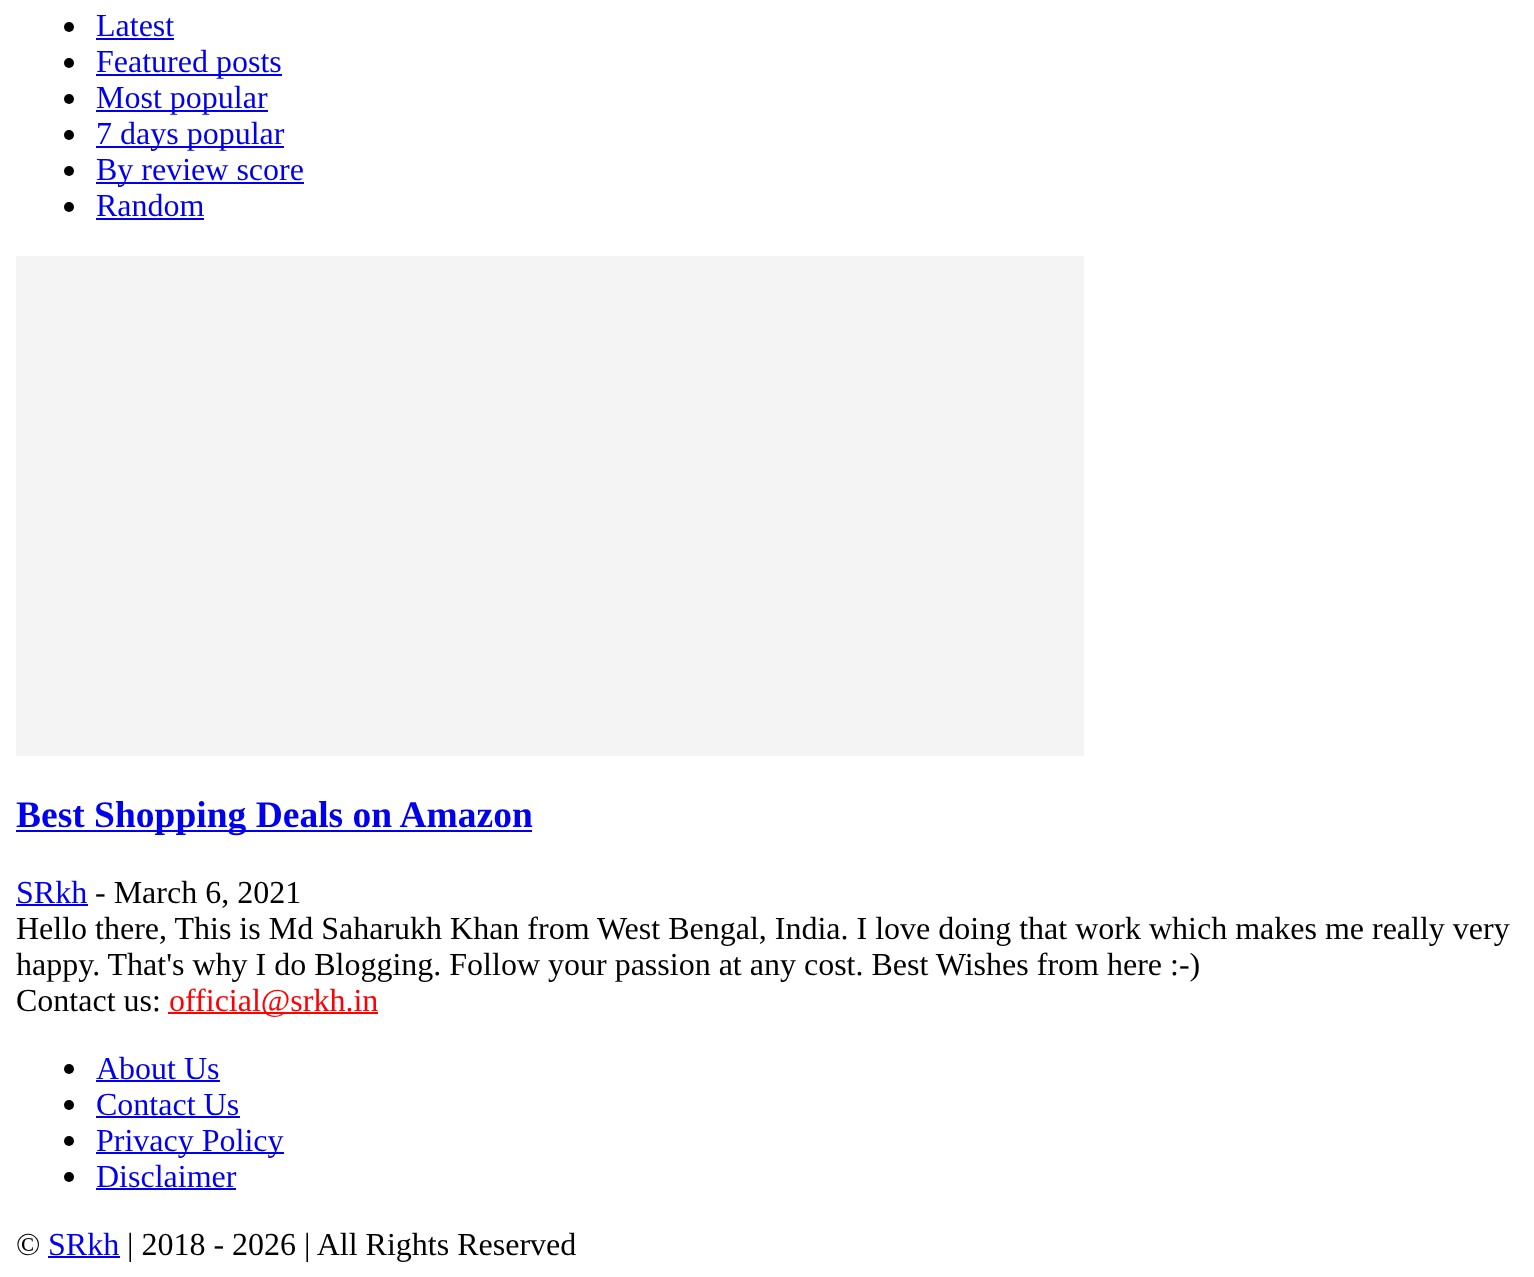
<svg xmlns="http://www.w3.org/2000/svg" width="1534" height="1277">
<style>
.a{font:32px Liberation Serif;fill:#00e}
.b{font:bold 37.5px Liberation Serif;fill:#00e}
.c{font:32px Liberation Serif;fill:#000}
.d{font:32px Liberation Serif;fill:#f00}
</style>
<rect width="100%" height="100%" fill="#fff"/>
<circle fill="#000" cx="69" cy="27" r="5"/>
<path fill="#00e" d="M96 38h78v2H96z"/>
<circle fill="#000" cx="69" cy="63" r="5"/>
<path fill="#00e" d="M96 74h186v2H96z"/>
<circle fill="#000" cx="69" cy="99" r="5"/>
<path fill="#00e" d="M96 110h172v2H96z"/>
<circle fill="#000" cx="69" cy="135" r="5"/>
<path fill="#00e" d="M96 146h188v2H96z"/>
<circle fill="#000" cx="69" cy="171" r="5"/>
<path fill="#00e" d="M96 182h208v2H96z"/>
<circle fill="#000" cx="69" cy="207" r="5"/>
<path fill="#00e" d="M96 218h108v2H96z"/>
<path fill="#f4f4f4" d="M16 256h1068v500H16z"/>
<path fill="#00e" d="M16 830h516v2H16z"/>
<path fill="#00e" d="M16 904h72v2H16z"/>
<path fill="#f00" d="M168 1012h210v2H168z"/>
<circle fill="#000" cx="69" cy="1069" r="5"/>
<path fill="#00e" d="M96 1080h124v2H96z"/>
<circle fill="#000" cx="69" cy="1105" r="5"/>
<path fill="#00e" d="M96 1116h144v2H96z"/>
<circle fill="#000" cx="69" cy="1141" r="5"/>
<path fill="#00e" d="M96 1152h188v2H96z"/>
<circle fill="#000" cx="69" cy="1177" r="5"/>
<path fill="#00e" d="M96 1188h140v2H96z"/>
<path fill="#00e" d="M48 1256h72v2H48z"/>
<text class="a" x="96" y="36">Latest</text>
<text class="a" x="96" y="72">Featured posts</text>
<text class="a" x="96" y="108">Most popular</text>
<text class="a" x="96" y="144">7 days popular</text>
<text class="a" x="96" y="180">By review score</text>
<text class="a" x="96" y="216">Random</text>
<text class="b" x="16" y="827">Best Shopping Deals on Amazon</text>
<text class="a" x="16" y="903">SRkh</text>
<text class="c" x="95" y="903">- March 6, 2021</text>
<text class="c" x="16" y="939">Hello there, This is Md Saharukh Khan from West Bengal, India. I love doing that work which makes me really very</text>
<text class="c" x="16" y="975">happy. That's why I do Blogging. Follow your passion at any cost. Best Wishes from here :-)</text>
<text class="c" x="16" y="1011">Contact us:</text>
<text class="d" x="169" y="1011">official@srkh.in</text>
<text class="a" x="96" y="1079">About Us</text>
<text class="a" x="96" y="1115">Contact Us</text>
<text class="a" x="96" y="1151">Privacy Policy</text>
<text class="a" x="96" y="1187">Disclaimer</text>
<text class="c" x="16" y="1255">©</text>
<text class="a" x="48" y="1255">SRkh</text>
<text class="c" x="127" y="1255">| 2018 - 2026 | All Rights Reserved</text>
</svg>
